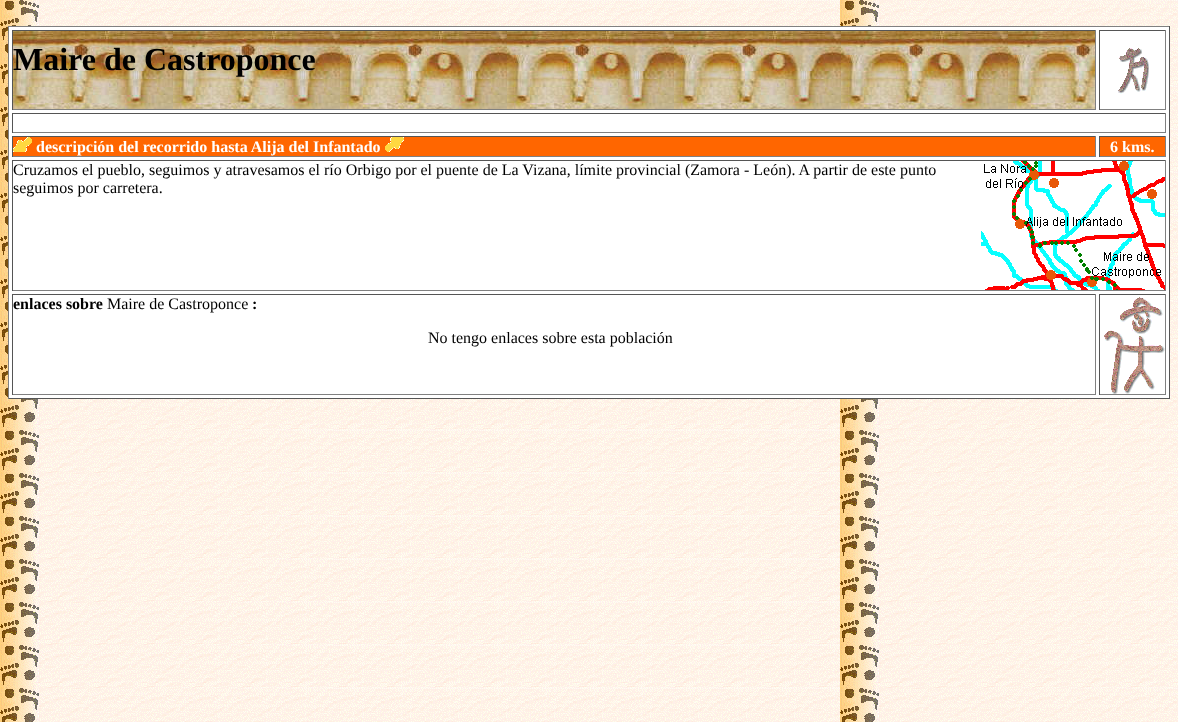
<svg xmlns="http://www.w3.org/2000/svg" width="1178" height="722">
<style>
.a{font:bold 32px Liberation Serif;fill:#000}
.b{font:bold 16px Liberation Serif;fill:#fff}
.c{font:16px Liberation Serif;fill:#000}
.d{font:bold 16px Liberation Serif;fill:#000}
</style>
<rect width="100%" height="100%" fill="#fff"/>
<image href="1.png" x="0" y="0" width="1178" height="722"/>
<path fill="#fff" d="M9 27h1160v371H9z"/>
<path fill="#808080" d="M8 26h1162v1H8z"/>
<path fill="#555" d="M1169 26h1v373H1169z"/>
<path fill="#555" d="M8 398h1162v1H8z"/>
<path fill="#808080" d="M8 26h1v373H8z"/>
<image href="2.png" x="13" y="31" width="1082" height="78"/>
<path fill="#555" d="M12 30h1084v1H12z"/>
<path fill="#808080" d="M1095 30h1v80H1095z"/>
<path fill="#808080" d="M12 109h1084v1H12z"/>
<path fill="#555" d="M12 30h1v80H12z"/>
<path fill="#555" d="M1099 30h67v1H1099z"/>
<path fill="#808080" d="M1165 30h1v80H1165z"/>
<path fill="#808080" d="M1099 109h67v1H1099z"/>
<path fill="#555" d="M1099 30h1v80H1099z"/>
<image href="3.png" x="1118" y="48" width="31" height="46"/>
<path fill="#555" d="M12 113h1154v1H12z"/>
<path fill="#808080" d="M1165 113h1v20H1165z"/>
<path fill="#808080" d="M12 132h1154v1H12z"/>
<path fill="#555" d="M12 113h1v20H12z"/>
<path fill="#f60" d="M13 137h1082v19H13z"/>
<path fill="#555" d="M12 136h1084v1H12z"/>
<path fill="#808080" d="M1095 136h1v21H1095z"/>
<path fill="#808080" d="M12 156h1084v1H12z"/>
<path fill="#555" d="M12 136h1v21H12z"/>
<image href="4.png" x="13" y="137" width="19" height="15"/>
<image href="5.png" x="385" y="137" width="19" height="15"/>
<path fill="#f60" d="M1100 137h65v19H1100z"/>
<path fill="#555" d="M1099 136h67v1H1099z"/>
<path fill="#808080" d="M1165 136h1v21H1165z"/>
<path fill="#808080" d="M1099 156h67v1H1099z"/>
<path fill="#555" d="M1099 136h1v21H1099z"/>
<path fill="#555" d="M12 160h1154v1H12z"/>
<path fill="#808080" d="M1165 160h1v131H1165z"/>
<path fill="#808080" d="M12 290h1154v1H12z"/>
<path fill="#555" d="M12 160h1v131H12z"/>
<image href="6.png" x="981" y="161" width="184" height="129"/>
<path fill="#555" d="M12 294h1084v1H12z"/>
<path fill="#808080" d="M1095 294h1v101H1095z"/>
<path fill="#808080" d="M12 394h1084v1H12z"/>
<path fill="#555" d="M12 294h1v101H12z"/>
<path fill="#555" d="M1099 294h67v1H1099z"/>
<path fill="#808080" d="M1165 294h1v101H1165z"/>
<path fill="#808080" d="M1099 394h67v1H1099z"/>
<path fill="#555" d="M1099 294h1v101H1099z"/>
<image href="7.png" x="1104" y="297" width="61" height="97"/>
<text class="a" x="13" y="70">Maire de Castroponce</text>
<text class="b" x="36" y="152">descripción del recorrido hasta Alija del Infantado</text>
<text class="b" x="1110" y="152">6 kms.</text>
<text class="c" x="13" y="175">Cruzamos el pueblo, seguimos y atravesamos el río Orbigo por el puente de La Vizana, límite provincial (Zamora - León). A partir de este punto</text>
<text class="c" x="13" y="193">seguimos por carretera.</text>
<text class="d" x="13" y="309">enlaces sobre</text>
<text class="c" x="107" y="309">Maire de Castroponce</text>
<text class="d" x="252" y="309">:</text>
<text class="c" x="428" y="343">No tengo enlaces sobre esta población</text>
</svg>
